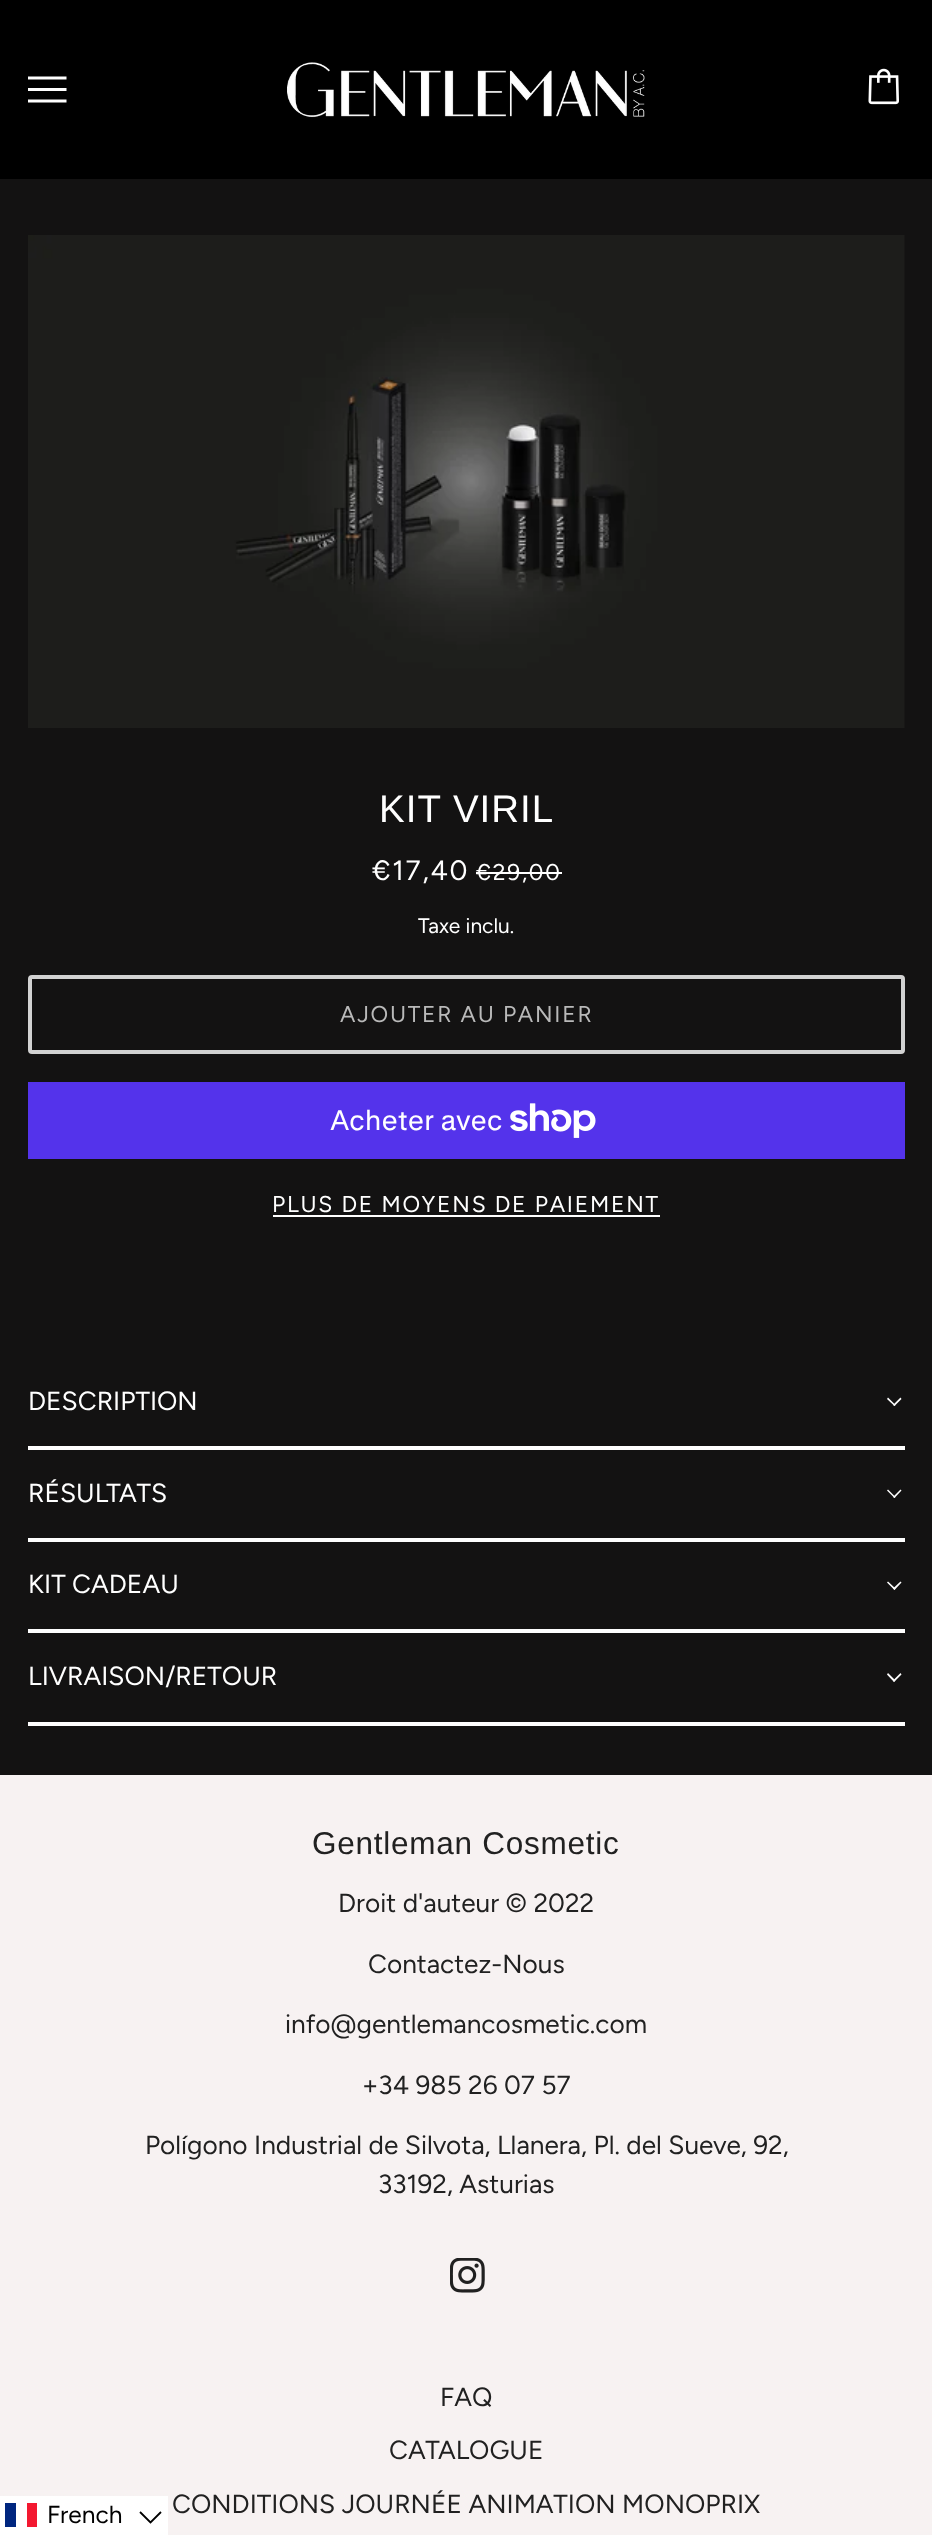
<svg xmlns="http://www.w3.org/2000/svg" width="932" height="2535">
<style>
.a{font:38.5px Liberation Sans;letter-spacing:1px;fill:#fff}
.b{font:28px Figtree;letter-spacing:1.75px;fill:#fff}
.c{font:22.75px Figtree;letter-spacing:1.75px;fill:#fff}
.d{font:21px Figtree;fill:#fff}
.e{font:22.75px Figtree;letter-spacing:1.75px;fill:#b9b9b9}
.f{font:28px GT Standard;fill:#fff}
.g{font:26.25px Figtree;fill:#fff}
.h{font:31.5px Liberation Sans;letter-spacing:0.75px;fill:#212121}
.i{font:26.25px Figtree;fill:#212121}
.j{font:24.5px Figtree;fill:#000}
</style>
<rect width="100%" height="100%" fill="#131212"/>
<path fill="#000" d="M0 0h932v179H0z"/>
<path fill="#fff" d="M28 79.5v-3h38.5v3zm0 11.5v-3h38.5v3zm0 11.5v-3h38.5v3z"/>
<image href="1.png" x="287" y="62" width="358" height="56"/>
<image href="2.png" x="868" y="68" width="31" height="37"/>
<image href="3.png" x="28" y="235" width="877" height="493"/>
<path fill="#fff" d="M476 872h86v2H476z"/>
<rect fill="none" stroke="#d2d2d2" stroke-width="4" x="30" y="977" width="873" height="75" rx="2"/>
<path fill="#5433eb" d="M28 1082h877v77H28z"/>
<image href="4.png" x="510" y="1103" width="86" height="35"/>
<path fill="#fff" d="M273 1215h387v2H273z"/>
<path fill="#fefefe" d="M28 1446h877v4H28z"/>
<path fill="#fefefe" d="M900.5 1397.5l1 1.5l-7 7l-1.5-1z"/>
<path fill="#fefefe" d="M888 1397.5l7.5 7.5l-1 1l-7.5-7z"/>
<path fill="#fefefe" d="M28 1538h877v4H28z"/>
<path fill="#fefefe" d="M900.5 1489.5l1 1l-7 7.5l-1.5-1z"/>
<path fill="#fefefe" d="M888 1489.5l7.5 7.5l-1 1l-7.5-7.5z"/>
<path fill="#fefefe" d="M28 1629h877v4H28z"/>
<path fill="#fefefe" d="M900.5 1581.5l1 1l-7 7.5l-1.5-1.5z"/>
<path fill="#fefefe" d="M888 1581.5l7.5 7l-1 1.5l-7.5-7.5z"/>
<path fill="#fefefe" d="M28 1722h877v4H28z"/>
<path fill="#fefefe" d="M900.5 1673l1 1.5l-7.5 7.5l-1-1.5z"/>
<path fill="#fefefe" d="M888 1673l7.5 7.5l-1.5 1.5l-7-7.5z"/>
<path fill="#f7f2f2" d="M0 1775h932v760H0z"/>
<image href="5.png" x="450" y="2258" width="35" height="35"/>
<path fill="#fff" d="M0 2496h168v39H0z"/>
<path fill="#00267f" d="M5 2503h11v24H5z"/>
<path fill="#f31830" d="M27 2503h10v24H27z"/>
<path fill="none" stroke="#000" stroke-width="1.8" d="M140 2512l10.5 10.5l10.5-10.5"/>
<text class="a" x="379" y="822">KIT VIRIL</text>
<text class="b" x="372" y="880">€17,40</text>
<text class="c" x="476" y="880">€29,00</text>
<text class="d" x="418" y="933">Taxe inclu.</text>
<text class="e" x="340" y="1022">AJOUTER AU PANIER</text>
<text class="f" x="330" y="1130">Acheter avec</text>
<text class="c" x="272" y="1212">PLUS DE MOYENS DE PAIEMENT</text>
<text class="g" x="28" y="1410">DESCRIPTION</text>
<text class="g" x="28" y="1502">RÉSULTATS</text>
<text class="g" x="28" y="1593">KIT CADEAU</text>
<text class="g" x="28" y="1685">LIVRAISON/RETOUR</text>
<text class="h" x="312" y="1854">Gentleman Cosmetic</text>
<text class="i" x="338" y="1912">Droit d'auteur © 2022</text>
<text class="i" x="368" y="1973">Contactez-Nous</text>
<text class="i" x="285" y="2033">info@gentlemancosmetic.com</text>
<text class="i" x="362" y="2094">+34 985 26 07 57</text>
<text class="i" x="145" y="2154">Polígono Industrial de Silvota, Llanera, Pl. del Sueve, 92,</text>
<text class="i" x="378" y="2193">33192, Asturias</text>
<text class="i" x="440" y="2406">FAQ</text>
<text class="i" x="389" y="2459">CATALOGUE</text>
<text class="i" x="172" y="2513">CONDITIONS JOURNÉE ANIMATION MONOPRIX</text>
<text class="j" x="47" y="2523">French</text>
</svg>
